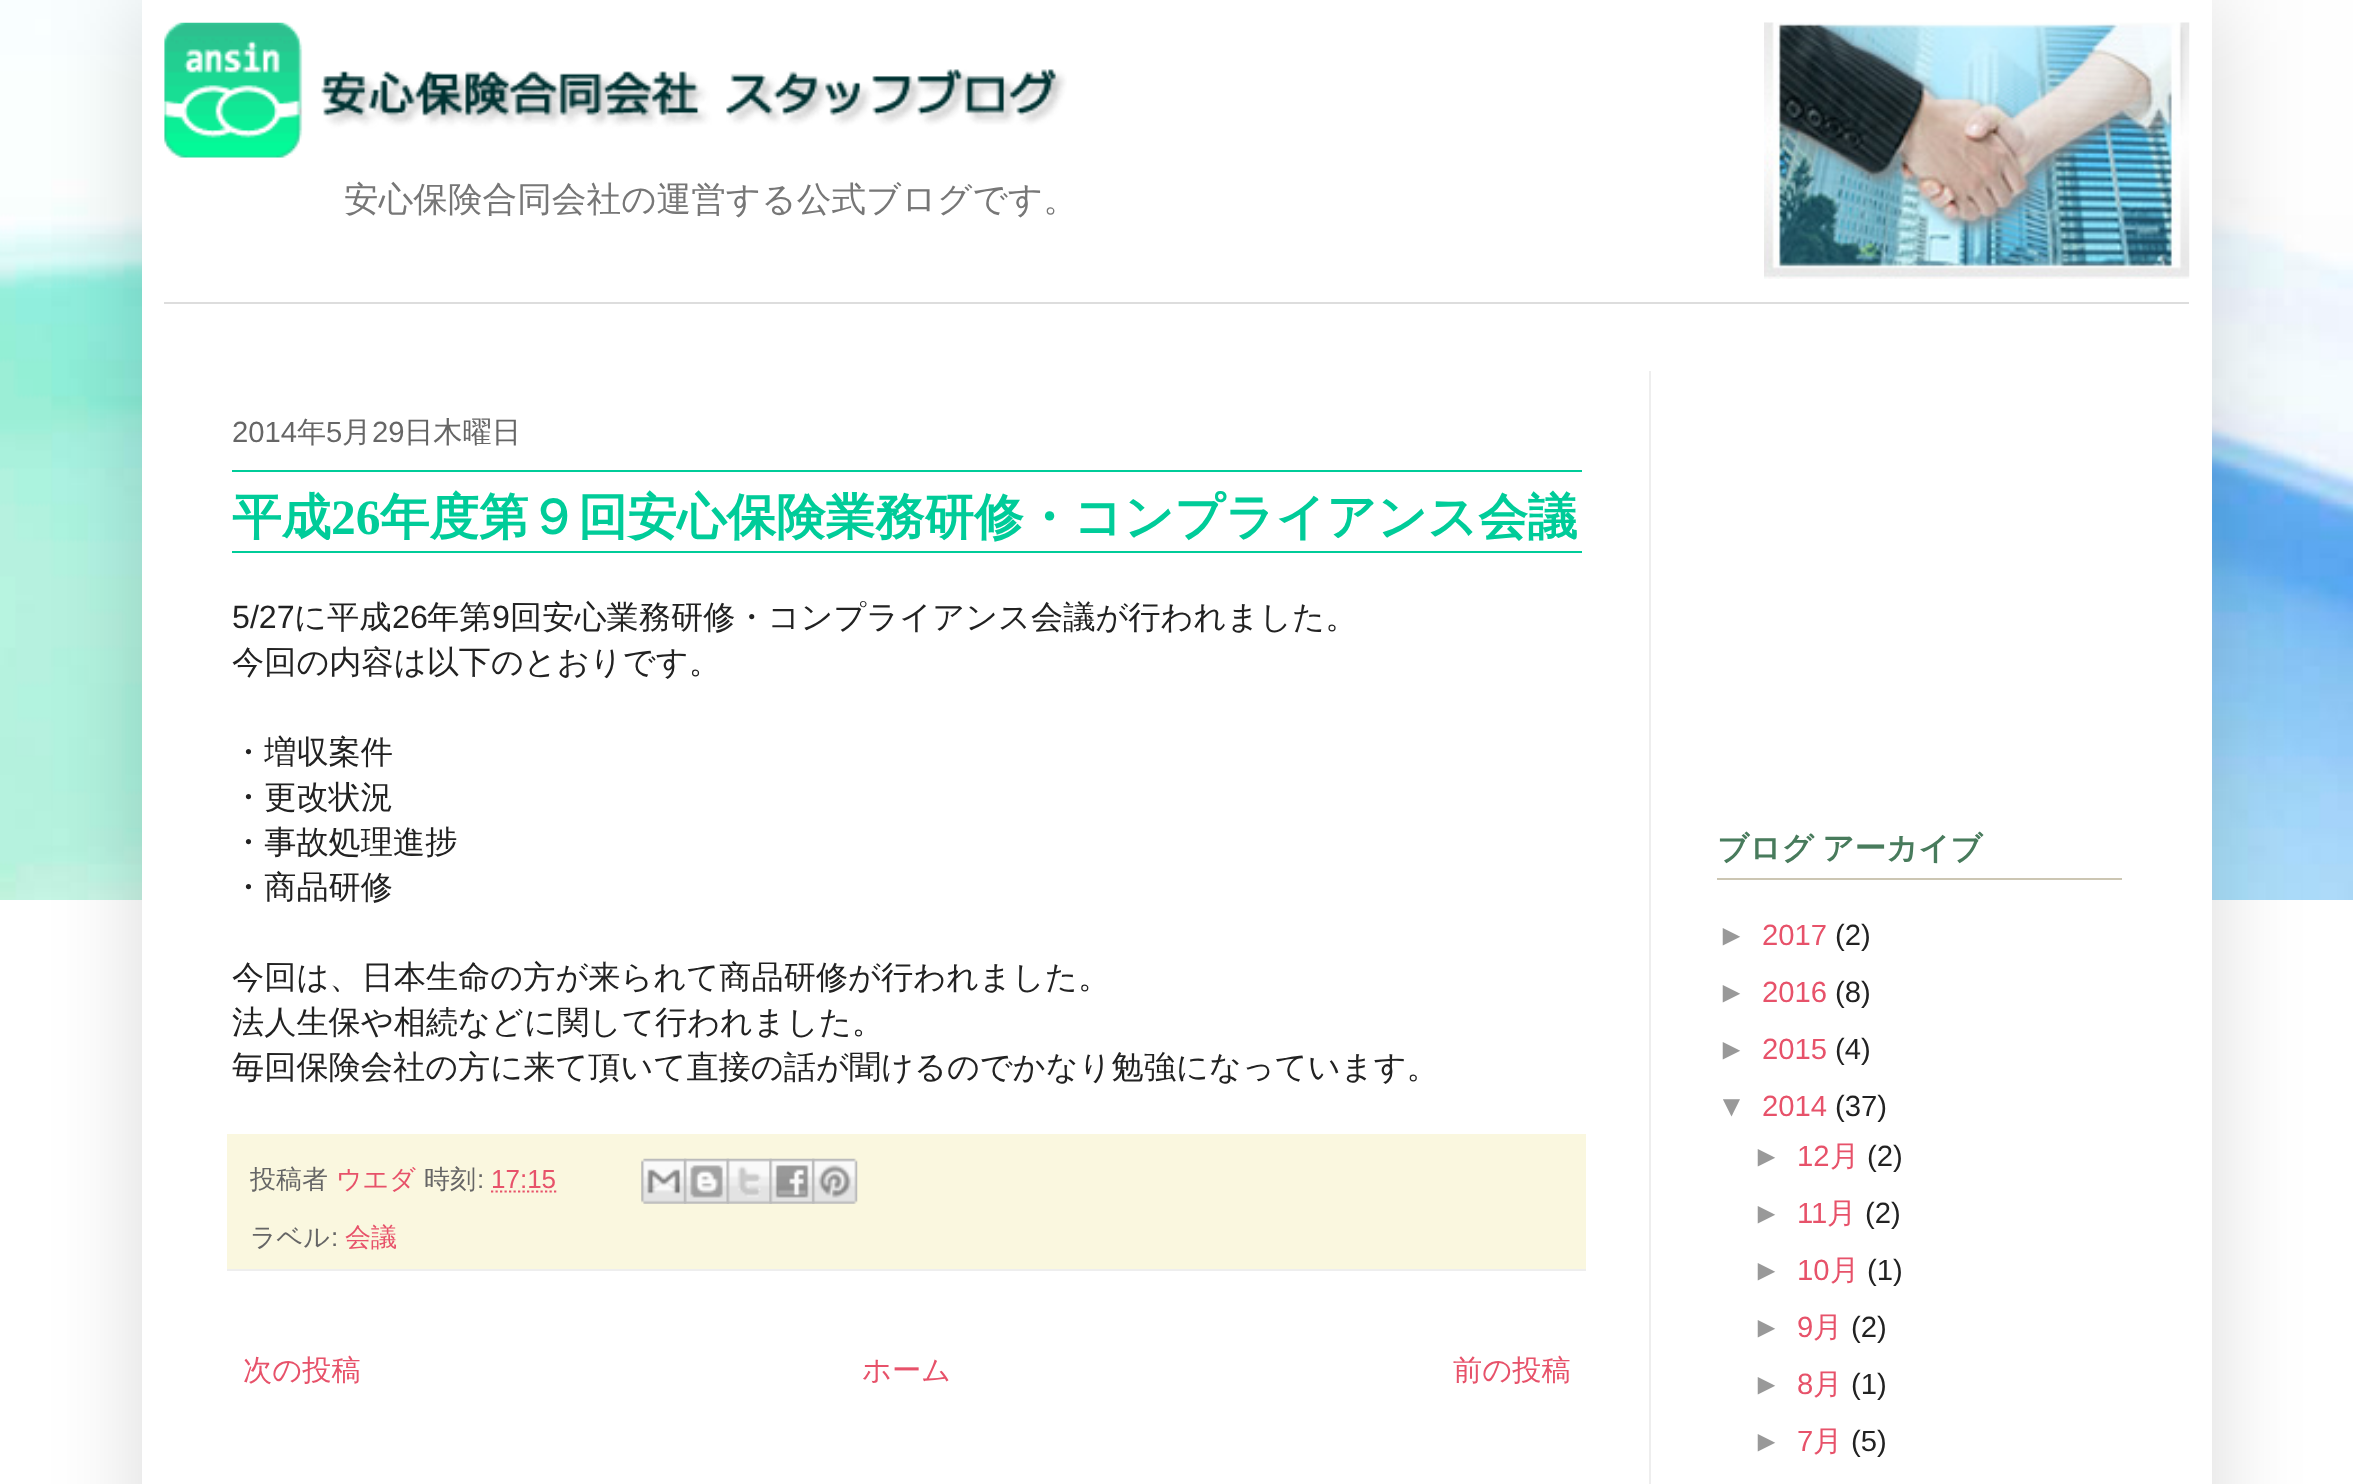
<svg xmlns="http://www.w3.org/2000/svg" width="2353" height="1484">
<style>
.a{font:500 34.65px WenQuanYi Zen Hei;fill:#777}
.b{font:29.25px Liberation Sans;fill:#666}
.c{font:500 29.25px WenQuanYi Zen Hei;fill:#666}
.d{font:bold 49.5px WenQuanYi Zen Hei;fill:#0c9}
.e{font:bold 49.5px Liberation Serif;fill:#0c9}
.f{font:32.2px Liberation Sans;fill:#222}
.g{font:500 32.2px WenQuanYi Zen Hei;fill:#222}
.h{font:500 26px WenQuanYi Zen Hei;fill:#666}
.i{font:500 26px WenQuanYi Zen Hei;fill:#e7526a}
.j{font:26px Liberation Sans;fill:#666}
.k{font:26px Liberation Sans;fill:#e7526a}
.l{font:500 29.25px WenQuanYi Zen Hei;fill:#e7526a}
.m{font:bold 31.5px WenQuanYi Zen Hei;fill:#487b5c}
.n{font:29.25px Liberation Sans;fill:#999}
.o{font:29.25px Liberation Sans;fill:#e7526a}
.p{font:29.25px Liberation Sans;fill:#222}
</style>
<rect width="100%" height="100%" fill="#fff"/>
<image href="1.png" x="0" y="0" width="2353" height="900"/>
<path fill="#00000026" filter="blur(45px)" d="M142 0h2070v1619H142z"/>
<path fill="#fff" d="M142 0h2070v1484H142z"/>
<path fill="#ddd" d="M164 302h2025v2H164z"/>
<image href="2.png" x="1764" y="22" width="426" height="257"/>
<image href="3.png" x="164" y="22" width="903" height="136"/>
<path fill="#eee" d="M1649 371h2v1113H1649z"/>
<path fill="#0c9" d="M232 470h1350v2H232z"/>
<path fill="#0c9" d="M232 551h1350v2H232z"/>
<path fill="#faf7df" d="M227 1134h1359v135H227z"/>
<path fill="#eee" d="M227 1269h1359v2H227z"/>
<path fill="none" stroke="#e7526a" stroke-width="2.2" stroke-dasharray="2.25 2.25" d="M491 1191.5h66"/>
<image href="4.png" x="641" y="1158" width="46" height="46"/>
<image href="5.png" x="684" y="1158" width="45" height="46"/>
<image href="6.png" x="726" y="1158" width="46" height="46"/>
<image href="7.png" x="769" y="1158" width="46" height="46"/>
<image href="8.png" x="812" y="1158" width="46" height="46"/>
<path fill="#ccc6b3" d="M1717 878h405v2H1717z"/>
<text class="a" x="344" y="211">安心保険合同会社の運営する公式ブログです。</text>
<text class="b" x="232" y="442">2014</text>
<text class="c" x="297" y="442">年</text>
<text class="b" x="326" y="442">5</text>
<text class="c" x="342" y="442">月</text>
<text class="b" x="372" y="442">29</text>
<text class="c" x="404" y="442">日木曜日</text>
<text class="d" x="232" y="534">平成</text>
<text class="e" x="331" y="534">26</text>
<text class="d" x="380" y="534">年度第９回安心保険業務研修・コンプライアンス会議</text>
<text class="f" x="232" y="628">5/27</text>
<text class="g" x="294" y="628">に平成</text>
<text class="f" x="392" y="628">26</text>
<text class="g" x="427" y="628">年第</text>
<text class="f" x="492" y="628">9</text>
<text class="g" x="510" y="628">回安心業務研修・コンプライアンス会議が行われました。</text>
<text class="g" x="232" y="673">今回の内容は以下のとおりです。</text>
<text class="g" x="232" y="763">・増収案件</text>
<text class="g" x="232" y="808">・更改状況</text>
<text class="g" x="232" y="853">・事故処理進捗</text>
<text class="g" x="232" y="898">・商品研修</text>
<text class="g" x="232" y="988">今回は、日本生命の方が来られて商品研修が行われました。</text>
<text class="g" x="232" y="1033">法人生保や相続などに関して行われました。</text>
<text class="g" x="232" y="1078">毎回保険会社の方に来て頂いて直接の話が聞けるのでかなり勉強になっています。</text>
<text class="h" x="250" y="1188">投稿者</text>
<text class="i" x="336" y="1188">ウエダ</text>
<text class="h" x="424" y="1188">時刻</text>
<text class="j" x="477" y="1188">:</text>
<text class="k" x="491" y="1188">17:15</text>
<text class="h" x="250" y="1246">ラベル</text>
<text class="j" x="331" y="1246">:</text>
<text class="i" x="345" y="1246">会議</text>
<text class="l" x="243" y="1380">次の投稿</text>
<text class="l" x="862" y="1380">ホーム</text>
<text class="l" x="1453" y="1380">前の投稿</text>
<text class="m" x="1717" y="859" word-spacing="-1">ブログ アーカイブ</text>
<text class="n" x="1717" y="945">►</text>
<text class="o" x="1762" y="945">2017</text>
<text class="p" x="1835" y="945">(2)</text>
<text class="n" x="1717" y="1002">►</text>
<text class="o" x="1762" y="1002">2016</text>
<text class="p" x="1835" y="1002">(8)</text>
<text class="n" x="1717" y="1059">►</text>
<text class="o" x="1762" y="1059">2015</text>
<text class="p" x="1835" y="1059">(4)</text>
<text class="n" x="1717" y="1116">▼</text>
<text class="o" x="1762" y="1116">2014</text>
<text class="p" x="1835" y="1116">(37)</text>
<text class="n" x="1752" y="1166">►</text>
<text class="o" x="1797" y="1166">12</text>
<text class="l" x="1830" y="1166">月</text>
<text class="p" x="1867" y="1166">(2)</text>
<text class="n" x="1752" y="1223">►</text>
<text class="o" x="1797" y="1223">11</text>
<text class="l" x="1827" y="1223">月</text>
<text class="p" x="1865" y="1223">(2)</text>
<text class="n" x="1752" y="1280">►</text>
<text class="o" x="1797" y="1280">10</text>
<text class="l" x="1830" y="1280">月</text>
<text class="p" x="1867" y="1280">(1)</text>
<text class="n" x="1752" y="1337">►</text>
<text class="o" x="1797" y="1337">9</text>
<text class="l" x="1813" y="1337">月</text>
<text class="p" x="1851" y="1337">(2)</text>
<text class="n" x="1752" y="1394">►</text>
<text class="o" x="1797" y="1394">8</text>
<text class="l" x="1813" y="1394">月</text>
<text class="p" x="1851" y="1394">(1)</text>
<text class="n" x="1752" y="1451">►</text>
<text class="o" x="1797" y="1451">7</text>
<text class="l" x="1813" y="1451">月</text>
<text class="p" x="1851" y="1451">(5)</text>
</svg>
